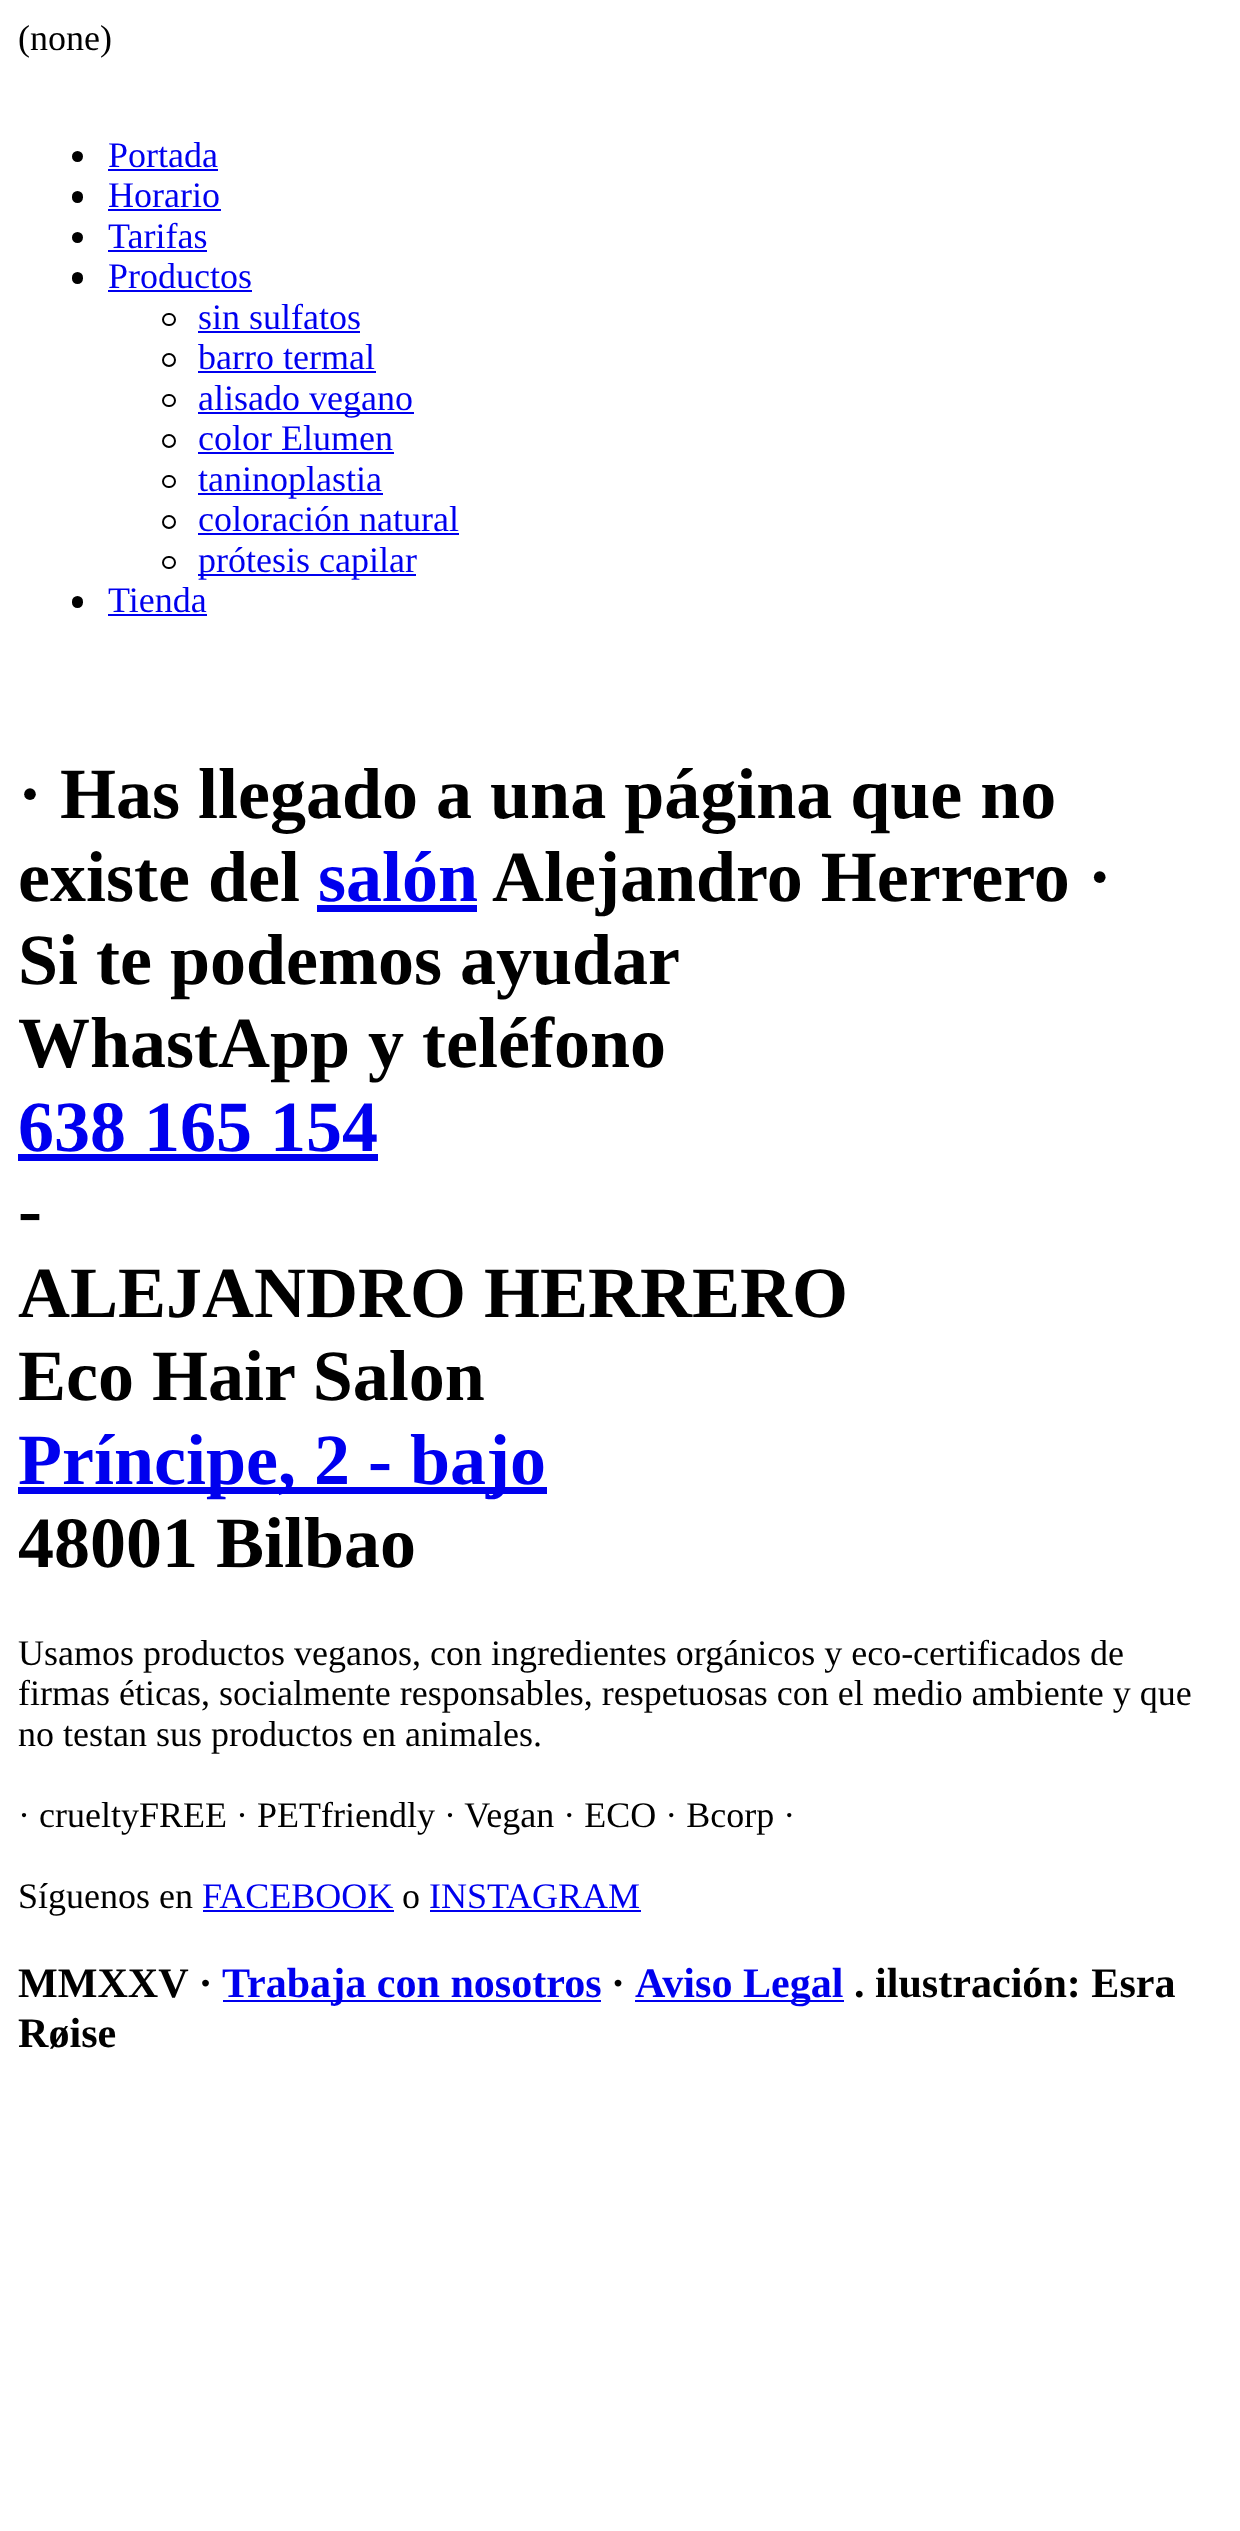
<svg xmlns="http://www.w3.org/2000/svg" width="1240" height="2531">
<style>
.a{font:36px Liberation Serif;fill:#000}
.b{font:36px Liberation Serif;fill:#00e}
.c{font:bold 72px Liberation Serif;fill:#000}
.d{font:bold 72px Liberation Serif;fill:#00e}
.e{font:bold 42.1px Liberation Serif;fill:#000}
.f{font:bold 42.1px Liberation Serif;fill:#00e}
</style>
<rect width="100%" height="100%" fill="#fff"/>
<circle fill="#000" cx="77.5" cy="156.5" r="5.5"/>
<path fill="#00e" d="M108 169h110v2H108z"/>
<rect fill="#000" x="72" y="191" width="11" height="12" rx="5.5"/>
<path fill="#00e" d="M108 209h113v2H108z"/>
<circle fill="#000" cx="77.5" cy="237.5" r="5.5"/>
<path fill="#00e" d="M108 250h99v2H108z"/>
<rect fill="#000" x="72" y="272" width="11" height="12" rx="5.5"/>
<path fill="#00e" d="M108 290h144v2H108z"/>
<rect fill="none" stroke="#000" stroke-width="2" x="163" y="314" width="12" height="11" rx="5.5"/>
<path fill="#00e" d="M198 331h162v2H198z"/>
<circle fill="none" stroke="#000" stroke-width="2" cx="169" cy="360" r="6"/>
<path fill="#00e" d="M198 371h178v2H198z"/>
<rect fill="none" stroke="#000" stroke-width="2" x="163" y="395" width="12" height="11" rx="5.5"/>
<path fill="#00e" d="M198 412h216v2H198z"/>
<circle fill="none" stroke="#000" stroke-width="2" cx="169" cy="441" r="6"/>
<path fill="#00e" d="M198 452h196v2H198z"/>
<rect fill="none" stroke="#000" stroke-width="2" x="163" y="476" width="12" height="11" rx="5.5"/>
<path fill="#00e" d="M198 493h185v2H198z"/>
<circle fill="none" stroke="#000" stroke-width="2" cx="169" cy="522" r="6"/>
<path fill="#00e" d="M198 533h261v2H198z"/>
<rect fill="none" stroke="#000" stroke-width="2" x="163" y="557" width="12" height="11" rx="5.5"/>
<path fill="#00e" d="M198 574h218v2H198z"/>
<rect fill="#000" x="72" y="596" width="11" height="12" rx="5.5"/>
<path fill="#00e" d="M108 614h99v2H108z"/>
<path fill="#00e" d="M317 905h160v7H317z"/>
<path fill="#00e" d="M18 1154h360v7H18z"/>
<path fill="#00e" d="M18 1487h529v7H18z"/>
<path fill="#00e" d="M203 1910h191v2H203z"/>
<path fill="#00e" d="M430 1910h211v2H430z"/>
<path fill="#00e" d="M223 2000h378v2H223z"/>
<path fill="#00e" d="M635 2000h209v2H635z"/>
<text class="a" x="18" y="50">(none)</text>
<text class="b" x="108" y="167">Portada</text>
<text class="b" x="108" y="207">Horario</text>
<text class="b" x="108" y="248">Tarifas</text>
<text class="b" x="108" y="288">Productos</text>
<text class="b" x="198" y="329">sin sulfatos</text>
<text class="b" x="198" y="369">barro termal</text>
<text class="b" x="198" y="410">alisado vegano</text>
<text class="b" x="198" y="450">color Elumen</text>
<text class="b" x="198" y="491">taninoplastia</text>
<text class="b" x="198" y="531">coloración natural</text>
<text class="b" x="198" y="572">prótesis capilar</text>
<text class="b" x="108" y="612">Tienda</text>
<text class="c" x="18" y="818">· Has llegado a una página que no</text>
<text class="c" x="18" y="901">existe del</text>
<text class="d" x="318" y="901">salón</text>
<text class="c" x="492" y="901">Alejandro Herrero ·</text>
<text class="c" x="18" y="984">Si te podemos ayudar</text>
<text class="c" x="18" y="1067">WhastApp y teléfono</text>
<text class="d" x="18" y="1151">638 165 154</text>
<text class="c" x="18" y="1234">-</text>
<text class="c" x="18" y="1317">ALEJANDRO HERRERO</text>
<text class="c" x="18" y="1400">Eco Hair Salon</text>
<text class="d" x="18" y="1484">Príncipe, 2 - bajo</text>
<text class="c" x="18" y="1567">48001 Bilbao</text>
<text class="a" x="18" y="1665">Usamos productos veganos, con ingredientes orgánicos y eco-certificados de</text>
<text class="a" x="18" y="1705">firmas éticas, socialmente responsables, respetuosas con el medio ambiente y que</text>
<text class="a" x="18" y="1746">no testan sus productos en animales.</text>
<text class="a" x="18" y="1827">· crueltyFREE · PETfriendly · Vegan · ECO · Bcorp ·</text>
<text class="a" x="18" y="1908">Síguenos en</text>
<text class="b" x="202" y="1908">FACEBOOK</text>
<text class="a" x="402" y="1908">o</text>
<text class="b" x="429" y="1908">INSTAGRAM</text>
<text class="e" x="18" y="1997">MMXXV ·</text>
<text class="f" x="222" y="1997">Trabaja con nosotros</text>
<text class="e" x="611" y="1997">·</text>
<text class="f" x="635" y="1997">Aviso Legal</text>
<text class="e" x="854" y="1997">. ilustración: Esra</text>
<text class="e" x="18" y="2047">Røise</text>
</svg>
